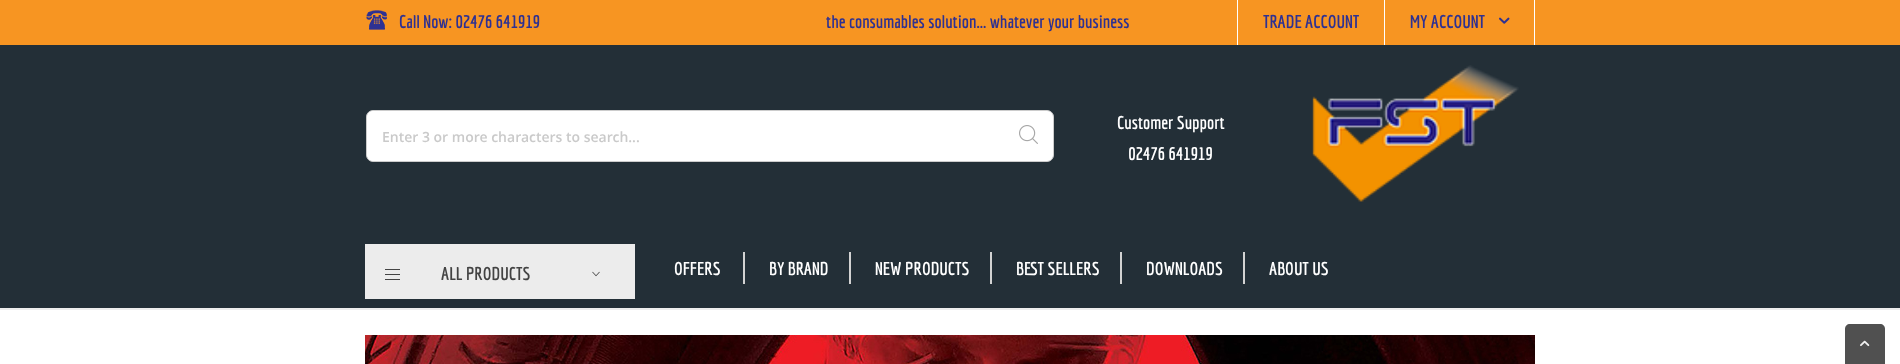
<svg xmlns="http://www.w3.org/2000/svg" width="1900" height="364">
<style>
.a{font:bold 18px Economica;fill:#2e3192}
.b{font:600 14px Open Sans;fill:#cacaca}
.c{font:bold 18px Economica;fill:#fff}
.d{font:bold 18px Economica;fill:#434343}
</style>
<rect width="100%" height="100%" fill="#fff"/>
<path fill="#232f37" d="M0 45h1900v263H0z"/>
<path fill="#f79522" d="M0 0h1900v45H0z"/>
<image href="1.png" x="366" y="10" width="21" height="20"/>
<path fill="#fff" d="M1237 0h1v45H1237z"/>
<path fill="#fff" d="M1384 0h1v45H1384z"/>
<path fill="#fff" d="M1534 0h1v45H1534z"/>
<image href="2.png" x="1499" y="17" width="11" height="7"/>
<rect fill="#fff" stroke="#ccc" x="366.5" y="110.5" width="687" height="51" rx="6.5"/>
<rect fill="#fff" x="367" y="111" width="514" height="50" rx="7"/>
<image href="3.png" x="1019" y="125" width="19" height="19"/>
<image href="4.png" x="1312" y="65" width="207" height="137"/>
<path fill="#eee" d="M0 308h1900v2H0z"/>
<path fill="#ececec" d="M365 244h270v55H365z"/>
<image href="5.png" x="385" y="269" width="15" height="11"/>
<image href="6.png" x="592" y="271" width="8" height="6"/>
<path fill="#d2d2d2" d="M743 252h2v32H743z"/>
<path fill="#d2d2d2" d="M849 252h2v32H849z"/>
<path fill="#d2d2d2" d="M990 252h2v32H990z"/>
<path fill="#d2d2d2" d="M1120 252h2v32H1120z"/>
<path fill="#d2d2d2" d="M1243 252h2v32H1243z"/>
<image href="7.png" x="365" y="335" width="1170" height="29"/>
<path fill="#505050" d="M1850 324h30c3 0 5 2 5 5v35h-40v-35c0-3 2-5 5-5z"/>
<image href="8.png" x="1860" y="340" width="10" height="7"/>
<text class="a" x="399" y="28">Call Now: 02476 641919</text>
<text class="a" x="826" y="28">the consumables solution... whatever your business</text>
<text class="a" x="1263" y="28">TRADE ACCOUNT</text>
<text class="a" x="1410" y="28">MY ACCOUNT</text>
<text class="b" x="382" y="142">Enter 3 or more characters to search...</text>
<text class="c" x="1117" y="129">Customer Support</text>
<text class="c" x="1128" y="160">02476 641919</text>
<text class="d" x="441" y="280">ALL PRODUCTS</text>
<text class="c" x="674" y="275">OFFERS</text>
<text class="c" x="769" y="275">BY BRAND</text>
<text class="c" x="875" y="275">NEW PRODUCTS</text>
<text class="c" x="1016" y="275">BEST SELLERS</text>
<text class="c" x="1146" y="275">DOWNLOADS</text>
<text class="c" x="1269" y="275">ABOUT US</text>
</svg>
